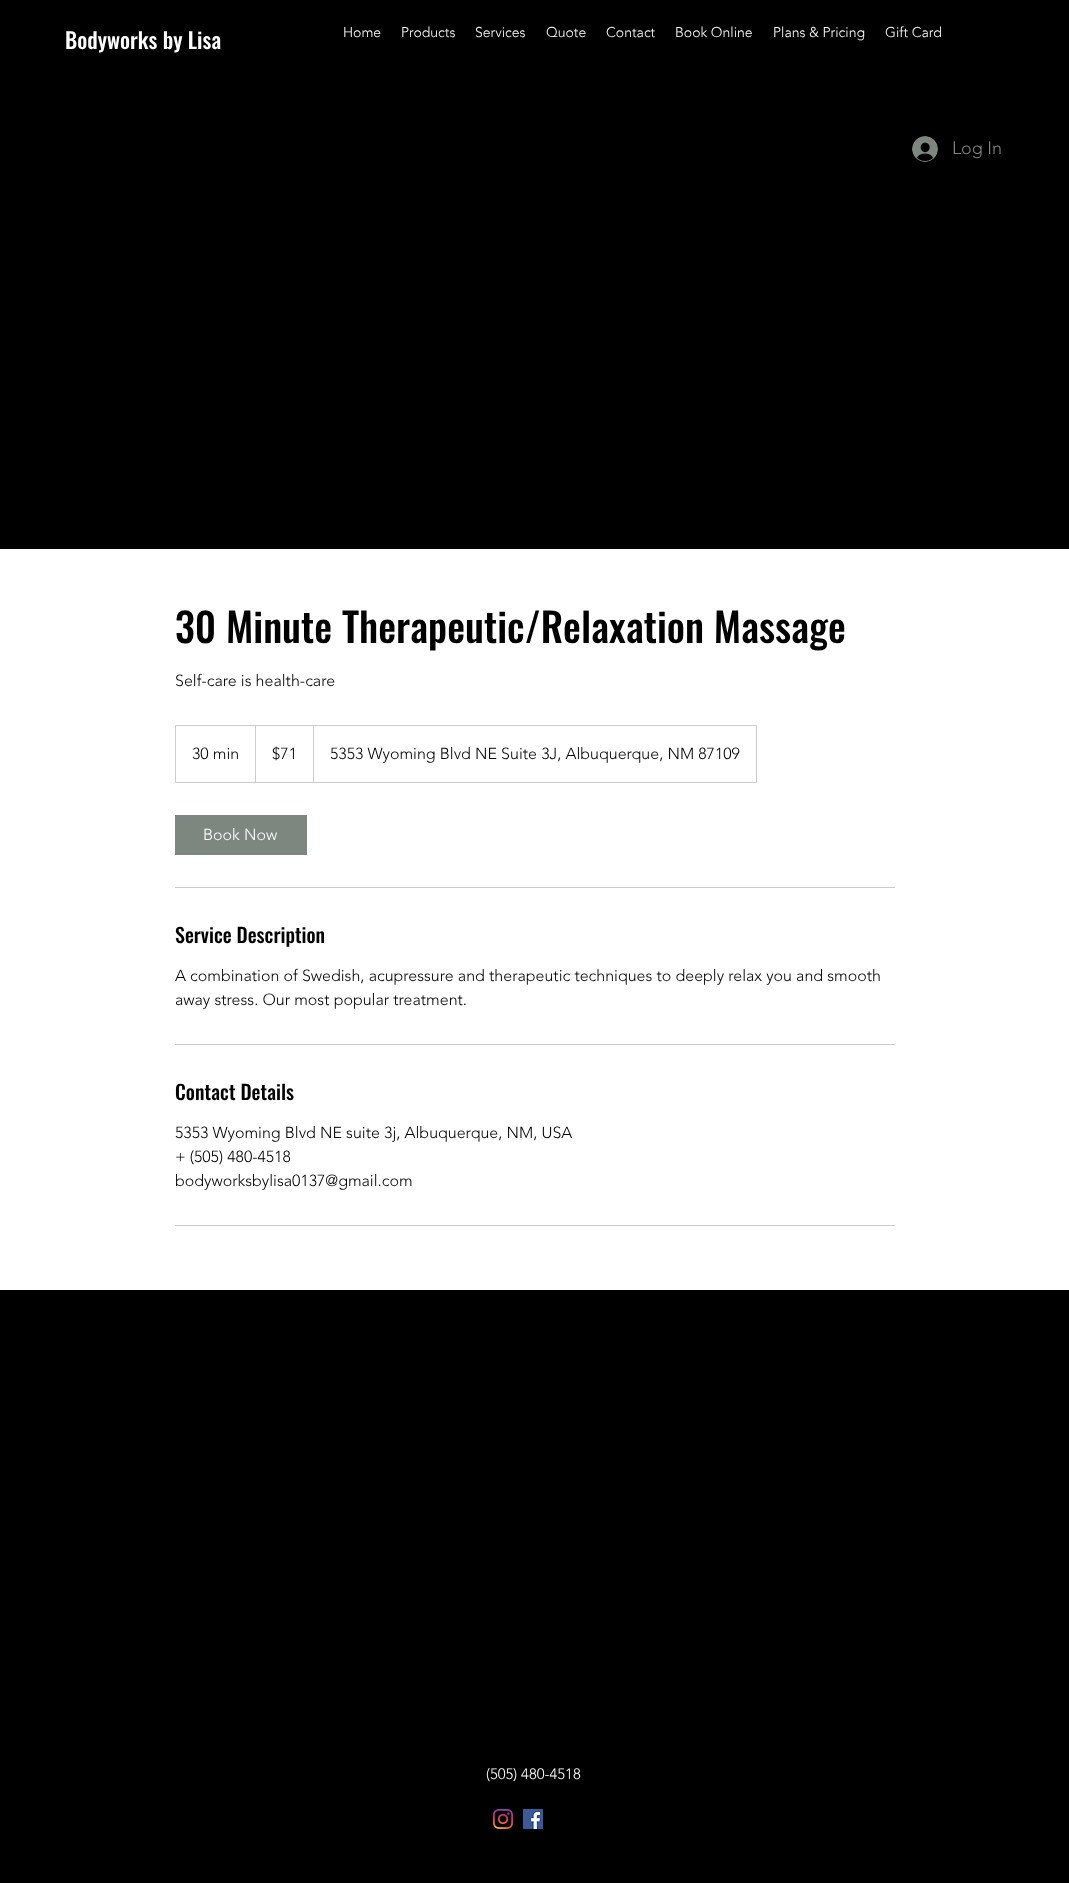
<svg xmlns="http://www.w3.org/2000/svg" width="1069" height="1883">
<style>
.a{font:500 22px Oswald;fill:#fff}
.b{font:300 14px 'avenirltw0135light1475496';fill:#fff}
.c{font:300 18px 'avenirltw0135light1475496';fill:#7e877f}
.d{font:500 40px Oswald;fill:#000}
.e{font:300 16px 'avenirltw0135light1475496';fill:#000}
.f{font:300 16px 'avenirltw0135light1475496';fill:#fff}
.g{font:500 20px Oswald;fill:#000}
.h{font:300 15px 'avenirltw0135light1475496';fill:#fff}
</style>
<rect width="100%" height="100%" fill="#fff"/>
<path fill="#000" d="M0 0h1069v549H0z"/>
<image href="1.png" x="912" y="136" width="26" height="26"/>
<path fill="none" stroke="#ccc" d="M175.5 725.5h581v57H175.5z"/>
<path fill="#ccc" d="M255 782v-57l1 1v56z"/>
<path fill="#ccc" d="M313 782v-57l1 1v56z"/>
<path fill="#7e877f" d="M175 815h132v40H175z"/>
<path fill="#ccc" d="M175 887h720v1H175z"/>
<path fill="#ccc" d="M175 1044h720v1H175z"/>
<path fill="#ccc" d="M175 1225h720v1H175z"/>
<path fill="#000" d="M0 1290h1069v593H0z"/>
<image href="2.png" x="493" y="1809" width="20" height="20"/>
<image href="3.png" x="523" y="1809" width="20" height="20"/>
<text class="a" x="65" y="49">Bodyworks by Lisa</text>
<text class="b" x="343" y="37">Home</text>
<text class="b" x="401" y="37">Products</text>
<text class="b" x="475" y="37">Services</text>
<text class="b" x="546" y="37">Quote</text>
<text class="b" x="606" y="37">Contact</text>
<text class="b" x="675" y="37">Book Online</text>
<text class="b" x="773" y="37">Plans &amp; Pricing</text>
<text class="b" x="885" y="37">Gift Card</text>
<text class="c" x="952" y="154">Log In</text>
<text class="d" x="175" y="643">30 Minute Therapeutic/Relaxation Massage</text>
<text class="e" x="175" y="686">Self-care is health-care</text>
<text class="e" x="192" y="759">30 min</text>
<text class="e" x="272" y="759">$71</text>
<text class="e" x="330" y="759">5353 Wyoming Blvd NE Suite 3J, Albuquerque, NM 87109</text>
<text class="f" x="203" y="840">Book Now</text>
<text class="g" x="175" y="943">Service Description</text>
<text class="e" x="175" y="981">A combination of Swedish, acupressure and therapeutic techniques to deeply relax you and smooth</text>
<text class="e" x="175" y="1005">away stress. Our most popular treatment.</text>
<text class="g" x="175" y="1100">Contact Details</text>
<text class="e" x="175" y="1138">5353 Wyoming Blvd NE suite 3j, Albuquerque, NM, USA</text>
<text class="e" x="175" y="1162">+ (505) 480-4518</text>
<text class="e" x="175" y="1186">bodyworksbylisa0137@gmail.com</text>
<text class="h" x="486" y="1779">(505) 480-4518</text>
</svg>
